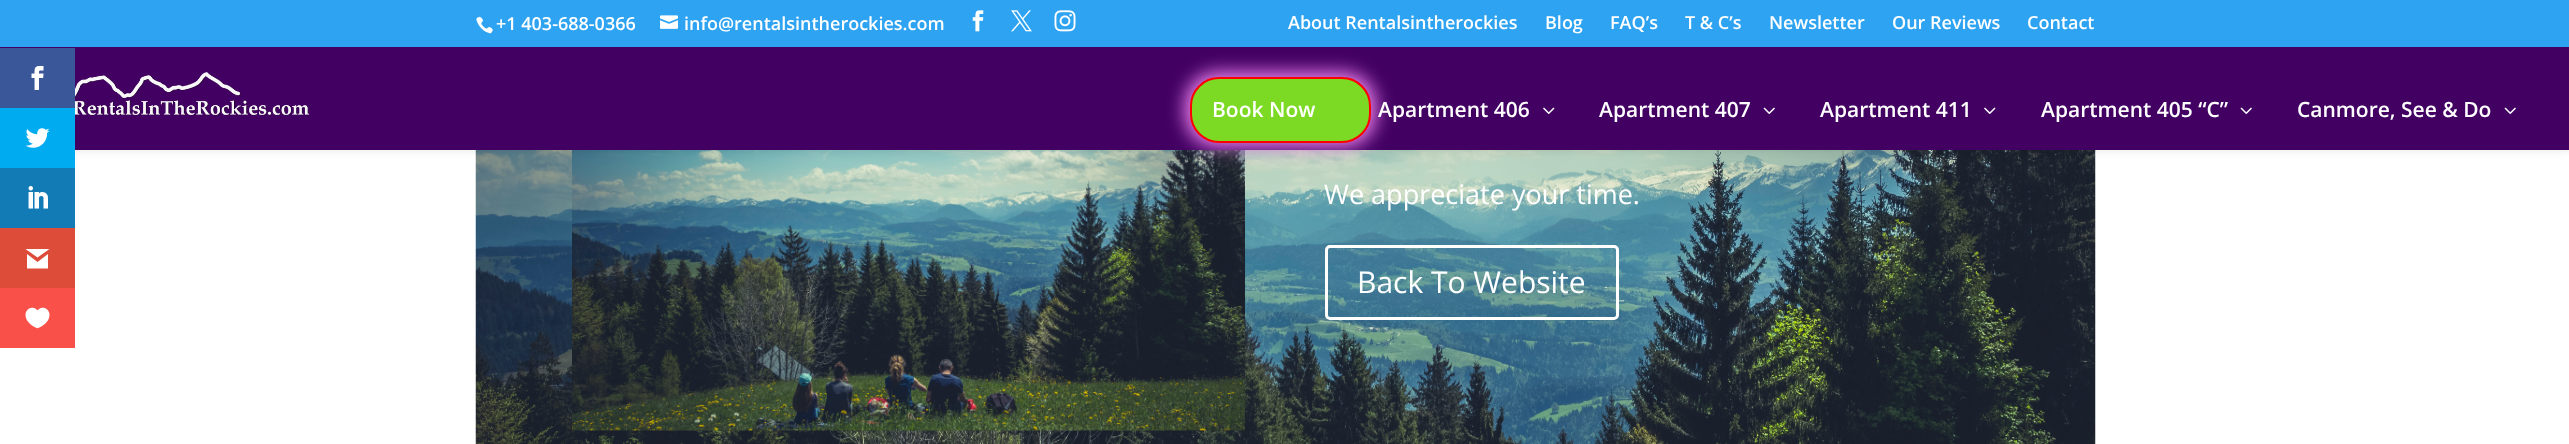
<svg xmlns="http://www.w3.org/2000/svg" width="2569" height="444">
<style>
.a{font:600 18px Open Sans;fill:#fff}
.b{font:600 21px Open Sans;fill:#fff}
.c{font:27px Open Sans;fill:#fff}
.d{font:30px Open Sans;fill:#fff}
</style>
<rect width="100%" height="100%" fill="#fff"/>
<image href="13.png" x="475" y="150" width="1621" height="294"/>
<image href="14.png" x="572" y="150" width="673" height="281"/>
<path fill="#0000001a" filter="blur(5px)" d="M0 47h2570v103H0z"/>
<path fill="#430063" d="M0 47h2569v103H0z"/>
<path fill="#3a579a" d="M0 48h75v60H0z"/>
<image href="1.png" x="31" y="66" width="13" height="24"/>
<path fill="#00abf0" d="M0 108h75v60H0z"/>
<image href="2.png" x="25" y="128" width="25" height="20"/>
<path fill="#127bb6" d="M0 168h75v60H0z"/>
<image href="3.png" x="28" y="186" width="20" height="23"/>
<path fill="#dd4b39" d="M0 228h75v60H0z"/>
<path fill="#fff" d="M49.5 249h-24l12 8.5zm-12 13l-10.5-8v14.5h21v-14.5z"/>
<path fill="#f95149" d="M0 288h75v60H0z"/>
<image href="4.png" x="25" y="307" width="25" height="22"/>
<rect fill="#ee82ee" filter="blur(9px)" x="1185" y="72" width="191" height="75" rx="33"/>
<path fill="#2ea3f2" d="M0 0h2569v47H0z"/>
<image href="5.png" x="476" y="16" width="17" height="18"/>
<image href="6.png" x="660" y="15" width="18" height="14"/>
<image href="7.png" x="972" y="10" width="12" height="22"/>
<image href="8.png" x="1011" y="10" width="21" height="22"/>
<image href="9.png" x="1054" y="10" width="22" height="22"/>
<image href="10.png" x="75" y="72" width="235" height="44"/>
<rect fill="#7cda24" stroke="#f00" stroke-width="2" x="1191" y="78" width="179" height="64" rx="28"/>
<image href="11.png" x="1543" y="107" width="12" height="7"/>
<image href="12.png" x="1763" y="107" width="12" height="7"/>
<image href="11.png" x="1984" y="107" width="12" height="7"/>
<image href="12.png" x="2240" y="107" width="12" height="7"/>
<image href="12.png" x="2504" y="107" width="12" height="7"/>
<rect fill="none" stroke="#fff" stroke-width="3" x="1326.5" y="246.5" width="291" height="72" rx="3.5"/>
<text class="a" x="496" y="30">+1 403-688-0366</text>
<text class="a" x="684" y="30">info@rentalsintherockies.com</text>
<text class="a" x="1288" y="29">About Rentalsintherockies</text>
<text class="a" x="1545" y="29">Blog</text>
<text class="a" x="1610" y="29">FAQ’s</text>
<text class="a" x="1685" y="29">T &amp; C’s</text>
<text class="a" x="1769" y="29">Newsletter</text>
<text class="a" x="1892" y="29">Our Reviews</text>
<text class="a" x="2027" y="29">Contact</text>
<text class="b" x="1212" y="117">Book Now</text>
<text class="b" x="1378" y="117">Apartment 406</text>
<text class="b" x="1599" y="117">Apartment 407</text>
<text class="b" x="1820" y="117">Apartment 411</text>
<text class="b" x="2041" y="117">Apartment 405 “C”</text>
<text class="b" x="2297" y="117">Canmore, See &amp; Do</text>
<text class="c" x="1324" y="204">We appreciate your time.</text>
<text class="d" x="1357" y="293">Back To Website</text>
</svg>
